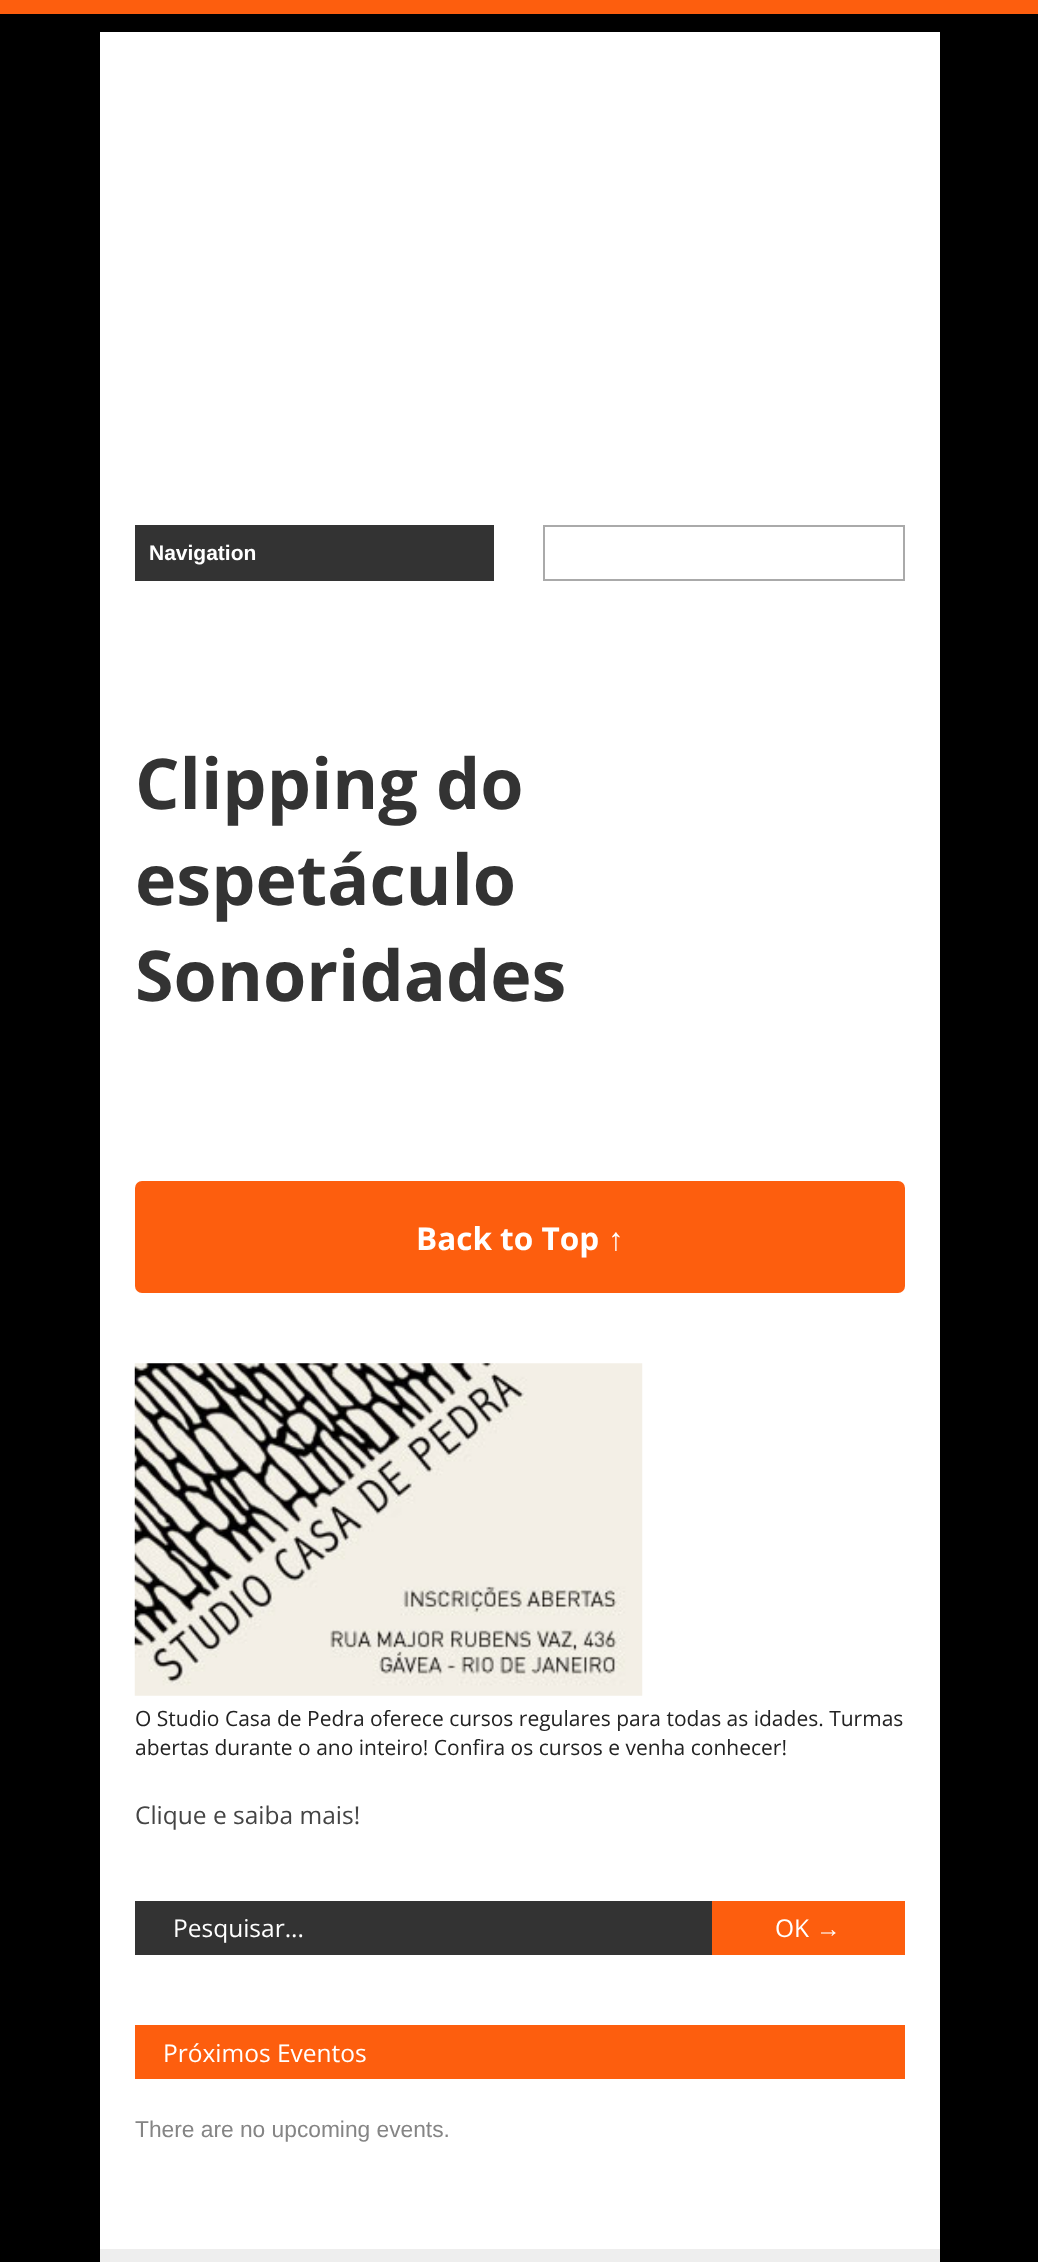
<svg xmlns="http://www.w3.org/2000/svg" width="1038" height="2262">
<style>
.a{font:bold 21px Liberation Sans;fill:#fff}
.b{font:bold 70px Open Sans;fill:#333}
.c{font:bold 31.5px Open Sans;fill:#fff}
.d{font:bold 31.5px Liberation Sans;fill:#fff}
.e{font:21px Open Sans;fill:#222}
.f{font:24.5px Open Sans;fill:#444}
.g{font:24.5px Open Sans;fill:#fff}
.h{font:24.5px Liberation Sans;fill:#fff}
.i{font:22.75px Liberation Sans;fill:#858585}
</style>
<rect width="100%" height="100%" fill="#000"/>
<path fill="#fd5e0e" d="M0 0h1038v14H0z"/>
<path fill="#fff" d="M100 32h840v2217H100z"/>
<path fill="#333" d="M135 525h359v56H135z"/>
<path fill="none" stroke="#aaa" stroke-width="2" d="M544 526h360v54H544z"/>
<rect fill="#fd5e0e" x="135" y="1181" width="770" height="112" rx="7"/>
<image href="1.png" x="134" y="1363" width="509" height="333"/>
<path fill="#333" d="M135 1901h577v54H135z"/>
<path fill="#fd5e0e" d="M712 1901h193v54H712z"/>
<path fill="#fd5e0e" d="M135 2025h770v54H135z"/>
<path fill="#eee" d="M100 2249h840v13H100z"/>
<text class="a" x="149" y="560">Navigation</text>
<text class="b" x="135" y="809">Clipping do</text>
<text class="b" x="135" y="905">espetáculo</text>
<text class="b" x="135" y="1001">Sonoridades</text>
<text class="c" x="416" y="1250">Back to Top</text>
<text class="d" x="608" y="1250">↑</text>
<text class="e" x="135" y="1726">O Studio Casa de Pedra oferece cursos regulares para todas as idades. Turmas</text>
<text class="e" x="135" y="1755">abertas durante o ano inteiro! Confira os cursos e venha conhecer!</text>
<text class="f" x="135" y="1824">Clique e saiba mais!</text>
<text class="g" x="173" y="1937">Pesquisar...</text>
<text class="g" x="775" y="1937">OK</text>
<text class="h" x="816" y="1937">→</text>
<text class="g" x="163" y="2062">Próximos Eventos</text>
<text class="i" x="135" y="2137">There are no upcoming events.</text>
</svg>
